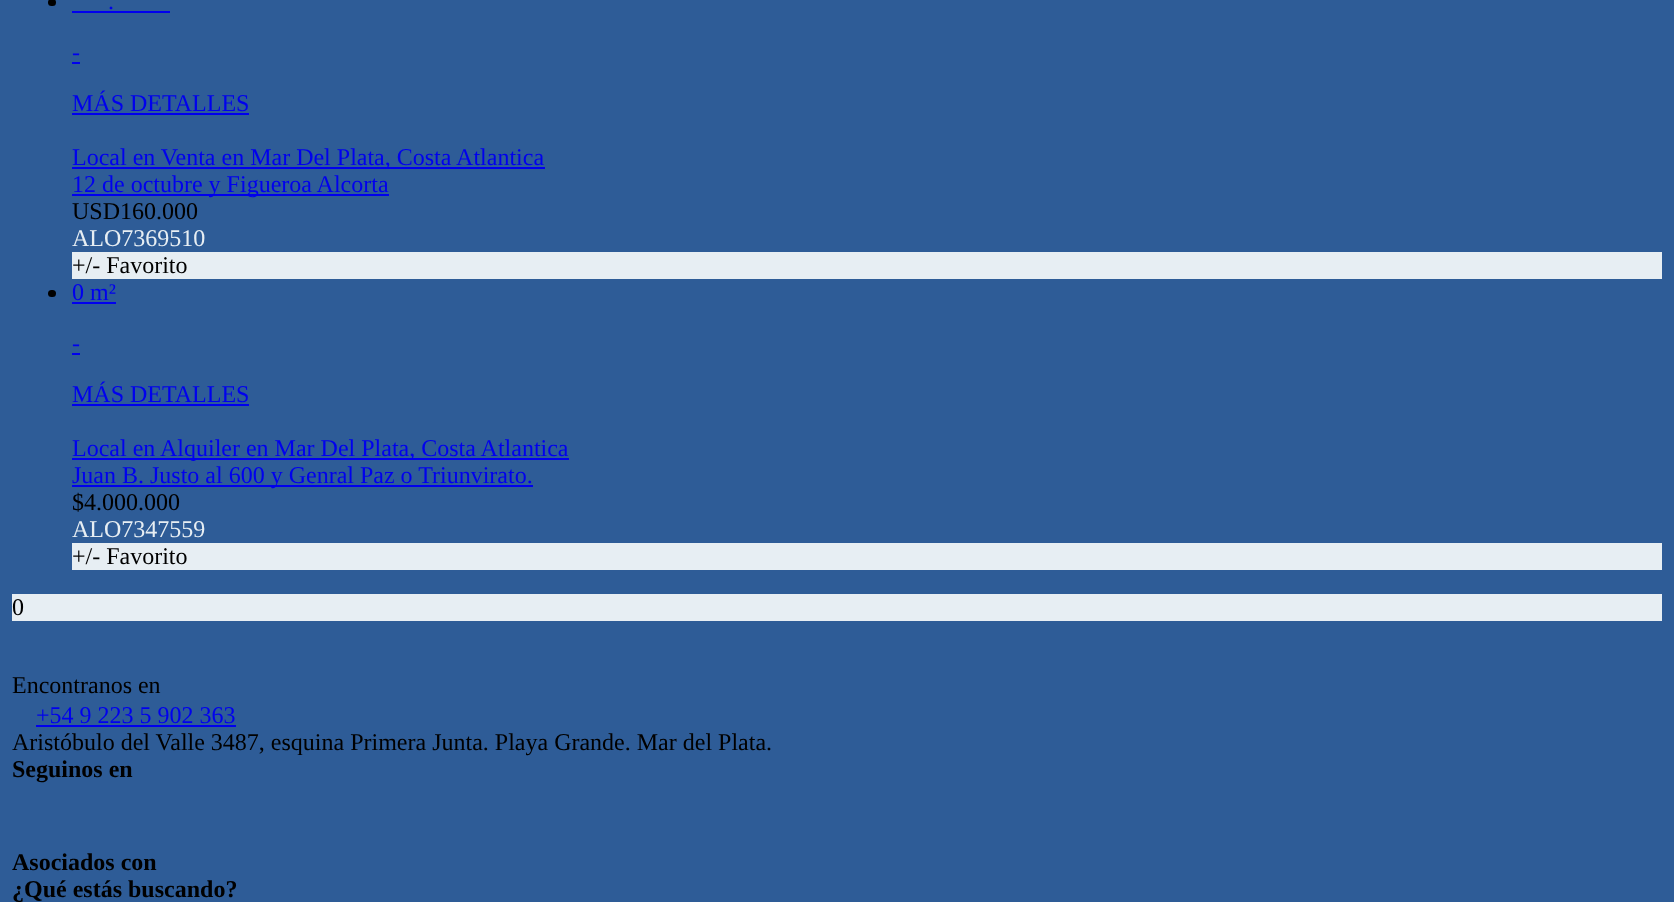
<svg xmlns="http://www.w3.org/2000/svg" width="1674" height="902">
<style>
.a{font:24px Liberation Serif;fill:#00e}
.b{font:24px Liberation Serif;fill:#000}
.c{font:24px Liberation Serif;fill:#e7eef3}
.d{font:bold 24px Liberation Serif;fill:#000}
</style>
<rect width="100%" height="100%" fill="#2e5c97"/>
<rect fill="#000" x="48" y="-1" width="8" height="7" rx="3.5"/>
<path fill="#00e" d="M72 11h98v2H72z"/>
<path fill="#00e" d="M72 62h8v2H72z"/>
<path fill="#00e" d="M72 113h177v2H72z"/>
<path fill="#00e" d="M72 167h473v2H72z"/>
<path fill="#00e" d="M72 194h317v2H72z"/>
<path fill="#e7eef3" d="M72 252h1590v27H72z"/>
<rect fill="#000" x="48" y="290" width="8" height="7" rx="3.5"/>
<path fill="#00e" d="M72 302h44v2H72z"/>
<path fill="#00e" d="M72 353h8v2H72z"/>
<path fill="#00e" d="M72 404h177v2H72z"/>
<path fill="#00e" d="M72 458h497v2H72z"/>
<path fill="#00e" d="M72 485h461v2H72z"/>
<path fill="#e7eef3" d="M72 543h1590v27H72z"/>
<path fill="#e7eef3" d="M12 594h1650v27H12z"/>
<path fill="#00e" d="M36 725h200v2H36z"/>
<text class="a" x="108" y="9">.</text>
<text class="a" x="72" y="60">-</text>
<text class="a" x="72" y="111">MÁS DETALLES</text>
<text class="a" x="72" y="165">Local en Venta en Mar Del Plata, Costa Atlantica</text>
<text class="a" x="72" y="192">12 de octubre y Figueroa Alcorta</text>
<text class="b" x="72" y="219">USD160.000</text>
<text class="c" x="72" y="246">ALO7369510</text>
<text class="b" x="72" y="273">+/- Favorito</text>
<text class="a" x="72" y="300">0 m²</text>
<text class="a" x="72" y="351">-</text>
<text class="a" x="72" y="402">MÁS DETALLES</text>
<text class="a" x="72" y="456">Local en Alquiler en Mar Del Plata, Costa Atlantica</text>
<text class="a" x="72" y="483">Juan B. Justo al 600 y Genral Paz o Triunvirato.</text>
<text class="b" x="72" y="510">$4.000.000</text>
<text class="c" x="72" y="537">ALO7347559</text>
<text class="b" x="72" y="564">+/- Favorito</text>
<text class="b" x="12" y="615">0</text>
<text class="b" x="12" y="693">Encontranos en</text>
<text class="a" x="36" y="723">+54 9 223 5 902 363</text>
<text class="b" x="12" y="750">Aristóbulo del Valle 3487, esquina Primera Junta. Playa Grande. Mar del Plata.</text>
<text class="d" x="12" y="777">Seguinos en</text>
<text class="d" x="12" y="870">Asociados con</text>
<text class="d" x="12" y="897">¿Qué estás buscando?</text>
</svg>
